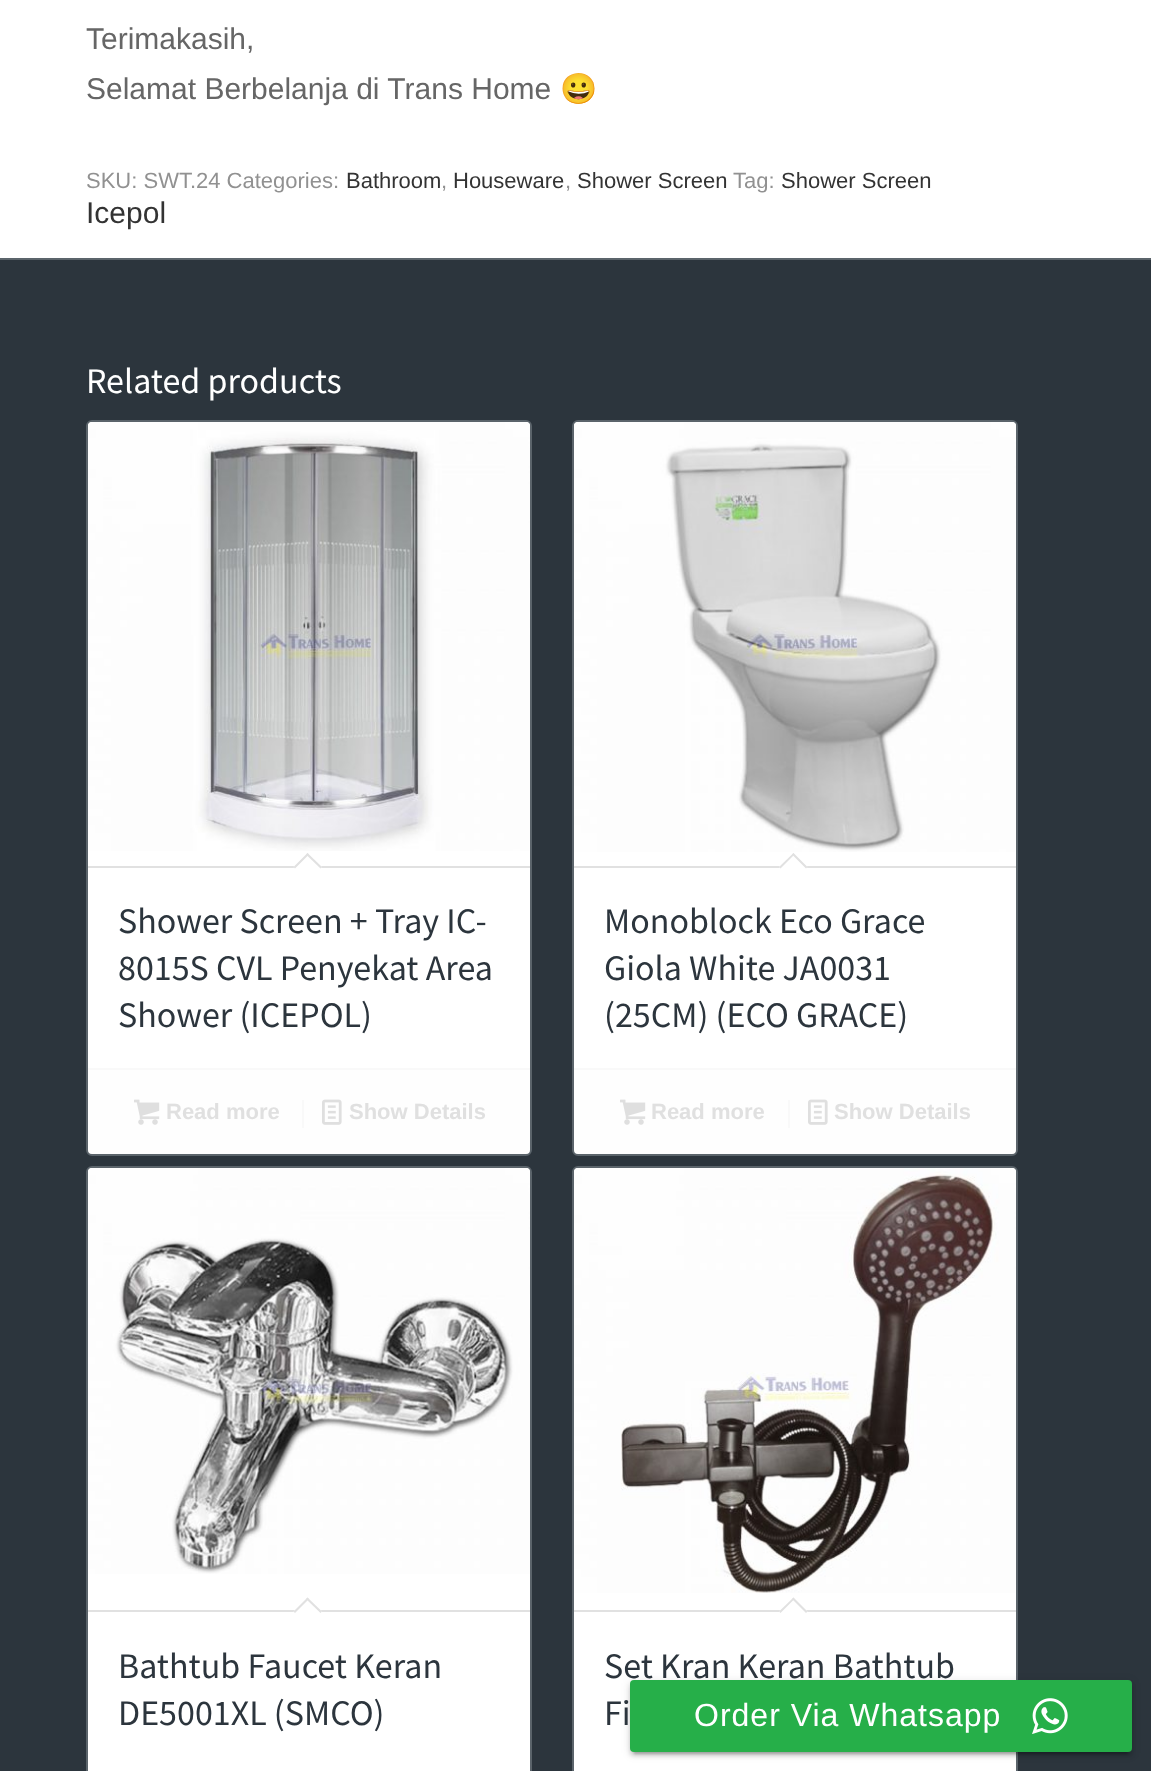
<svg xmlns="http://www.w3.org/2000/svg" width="1151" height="1771">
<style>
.a{font:30px Liberation Sans;fill:#666}
.b{font:30px Noto Color Emoji;fill:#666}
.c{font:22px Liberation Sans;fill:#919191}
.d{font:22px Liberation Sans;fill:#333}
.e{font:30px Liberation Sans;fill:#333}
.f{font:36px Source Sans Pro;fill:#fff}
.g{font:36px Source Sans Pro;fill:#2c353d}
.h{font:bold 22px Liberation Sans;fill:#e0e0e0}
.i{font:32px Liberation Sans;letter-spacing:1px;fill:#fff}
</style>
<rect width="100%" height="100%" fill="#2c353d"/>
<path fill="#fff" d="M0 0h1151v258H0z"/>
<path fill="#5b646b" d="M0 258h1151v2H0z"/>
<rect fill="#fff" stroke="#5b646b" stroke-width="2" x="87" y="421" width="444" height="734" rx="5"/>
<image href="1.png" x="88" y="422" width="442" height="429"/>
<path fill="#e1e1e1" d="M88 866h442v2H88z"/>
<path fill="#fff" d="M307.5 853l14.5 14l-14.5 14l-14-14z"/>
<path fill="#e1e1e1" d="M307.5 853l14.5 14l-1.5 1.5l-14.5-14z"/>
<path fill="#e1e1e1" d="M307.5 853l1.5 1.5l-14 14l-1.5-1.5z"/>
<path fill="#f8f8f833" d="M88 1068h442v82c0 2-2 4-4 4h-434c-2 0-4-2-4-4z"/>
<path fill="#f9f9f9" d="M88 1068h442v2H88z"/>
<image href="2.png" x="134" y="1099" width="26" height="26"/>
<path fill="#f9f9f9" d="M302 1100h2v28H302z"/>
<image href="3.png" x="322" y="1099" width="20" height="26"/>
<rect fill="#fff" stroke="#5b646b" stroke-width="2" x="573" y="421" width="444" height="734" rx="5"/>
<image href="4.png" x="574" y="422" width="442" height="430"/>
<path fill="#e1e1e1" d="M574 866h442v2H574z"/>
<path fill="#fff" d="M793.5 853l14 14l-14 14l-14.5-14z"/>
<path fill="#e1e1e1" d="M793.5 853l14 14l-1.5 1.5l-14-14z"/>
<path fill="#e1e1e1" d="M793.5 853l1 1.5l-14 14l-1.5-1.5z"/>
<path fill="#f8f8f833" d="M574 1068h442v82c0 2-2 4-4 4h-434c-2 0-4-2-4-4z"/>
<path fill="#f9f9f9" d="M574 1068h442v2H574z"/>
<image href="2.png" x="620" y="1099" width="26" height="26"/>
<path fill="#f9f9f9" d="M788 1100h2v28H788z"/>
<image href="3.png" x="808" y="1099" width="20" height="26"/>
<rect fill="#fff" stroke="#5b646b" stroke-width="2" x="87" y="1167" width="444" height="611" rx="5"/>
<image href="5.png" x="88" y="1168" width="442" height="406"/>
<path fill="#e1e1e1" d="M88 1610h442v2H88z"/>
<path fill="#fff" d="M307.5 1597.5l14.5 14l-14.5 14.5l-14-14.5z"/>
<path fill="#e1e1e1" d="M307.5 1597.5l14.5 14l-1.5 1.5l-14.5-14z"/>
<path fill="#e1e1e1" d="M307.5 1597.5l1.5 1.5l-14 14l-1.5-1.5z"/>
<rect fill="#fff" stroke="#5b646b" stroke-width="2" x="573" y="1167" width="444" height="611" rx="5"/>
<image href="6.png" x="574" y="1168" width="442" height="425"/>
<path fill="#e1e1e1" d="M574 1610h442v2H574z"/>
<path fill="#fff" d="M793.5 1597.5l14 14l-14 14.5l-14.5-14.5z"/>
<path fill="#e1e1e1" d="M793.5 1597.5l14 14l-1.5 1.5l-14-14z"/>
<path fill="#e1e1e1" d="M793.5 1597.5l1 1.5l-14 14l-1.5-1.5z"/>
<path fill="#00000033" filter="blur(1px)" d="M634 1690h494v64H634z"/>
<rect fill="#0000001f" filter="blur(5px)" x="630" y="1682" width="502" height="72" rx="4"/>
<rect fill="#00000024" filter="blur(2px)" x="630" y="1684" width="502" height="72" rx="4"/>
<rect fill="#26af49" x="630" y="1680" width="502" height="72" rx="4"/>
<image href="7.png" x="1032" y="1698" width="36" height="36"/>
<text class="a" x="86" y="49">Terimakasih,</text>
<text class="a" x="86" y="99">Selamat Berbelanja di Trans Home</text>
<text class="b" x="560" y="99">😀</text>
<text class="c" x="86" y="188">SKU: SWT.24 Categories:</text>
<text class="d" x="346" y="188">Bathroom</text>
<text class="c" x="441" y="188">,</text>
<text class="d" x="453" y="188">Houseware</text>
<text class="c" x="565" y="188">,</text>
<text class="d" x="577" y="188">Shower Screen</text>
<text class="c" x="733" y="188">Tag:</text>
<text class="d" x="781" y="188">Shower Screen</text>
<text class="e" x="86" y="223">Icepol</text>
<text class="f" x="86" y="393">Related products</text>
<text class="g" x="118" y="933">Shower Screen + Tray IC-</text>
<text class="g" x="118" y="980">8015S CVL Penyekat Area</text>
<text class="g" x="118" y="1027">Shower (ICEPOL)</text>
<text class="h" x="166" y="1119">Read more</text>
<text class="h" x="349" y="1119">Show Details</text>
<text class="g" x="604" y="933">Monoblock Eco Grace</text>
<text class="g" x="604" y="980">Giola White JA0031</text>
<text class="g" x="604" y="1027">(25CM) (ECO GRACE)</text>
<text class="h" x="651" y="1119">Read more</text>
<text class="h" x="834" y="1119">Show Details</text>
<text class="g" x="118" y="1678">Bathtub Faucet Keran</text>
<text class="g" x="118" y="1725">DE5001XL (SMCO)</text>
<text class="g" x="604" y="1678">Set Kran Keran Bathtub</text>
<text class="g" x="604" y="1725">Fi</text>
<text class="i" x="694" y="1726">Order Via Whatsapp</text>
</svg>
